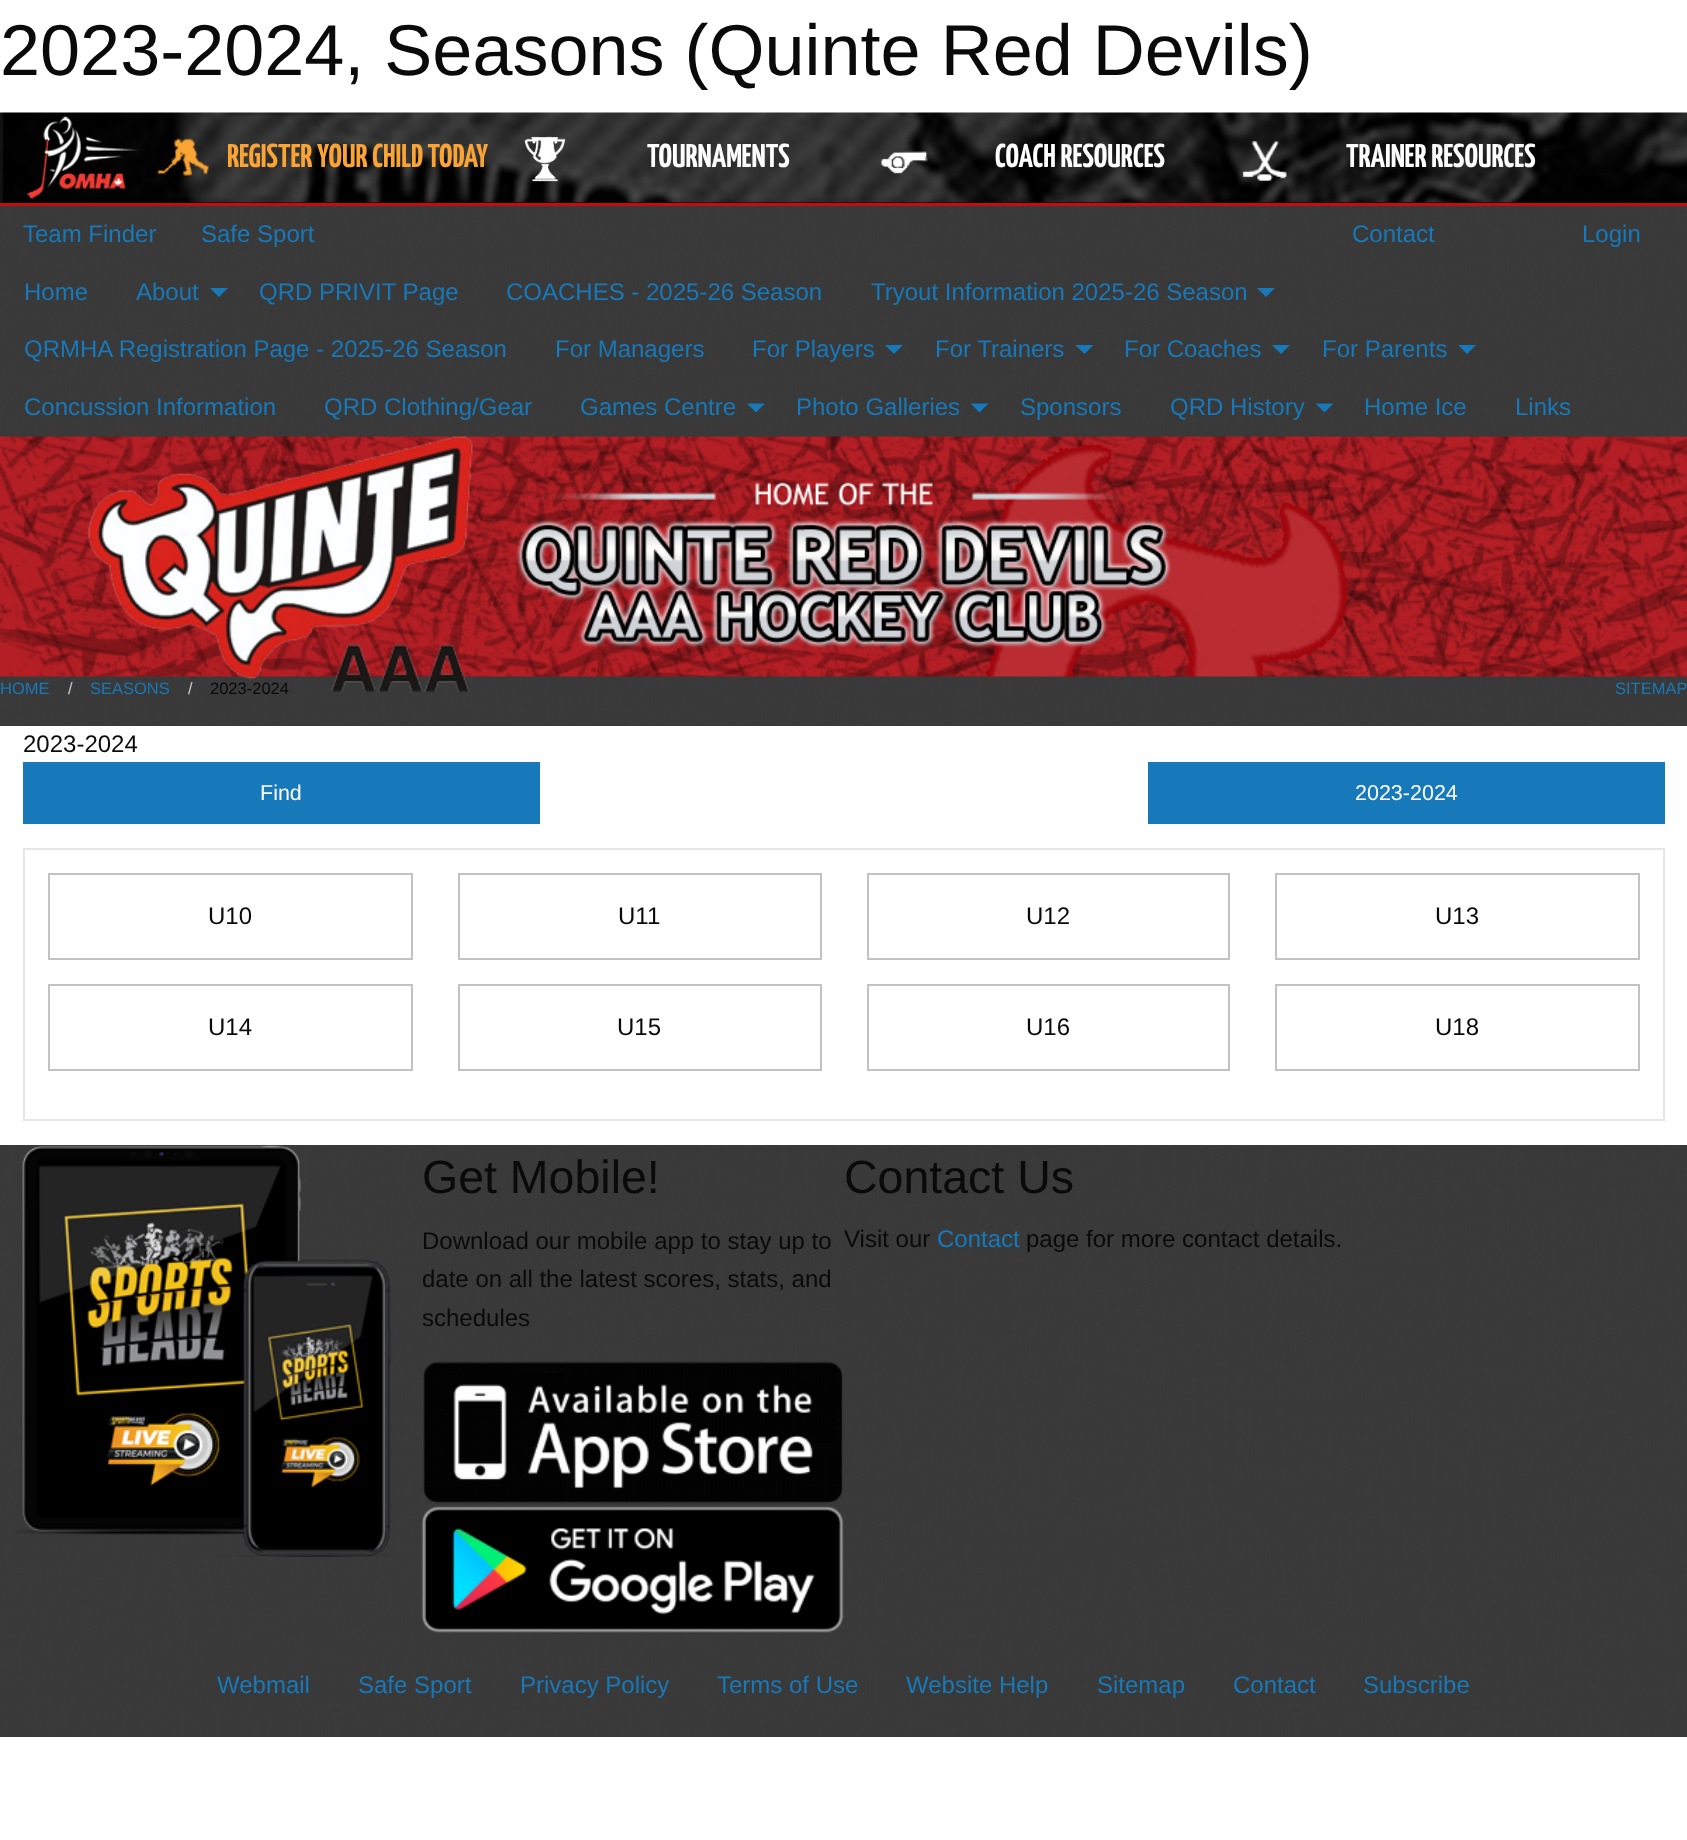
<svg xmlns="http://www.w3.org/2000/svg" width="1687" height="1840">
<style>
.a{font:72px Liberation Sans;fill:#0a0a0a}
.b{font:200 33px Yanone Kaffeesatz;fill:#f9a435}
.c{font:200 33px Yanone Kaffeesatz;fill:#fefefe}
.d{font:24px Liberation Sans;fill:#1779ba}
.e{font:16.5px Liberation Sans;fill:#1779ba}
.f{font:16.5px Liberation Sans;fill:#cacaca}
.g{font:16.5px Liberation Sans;fill:#0a0a0a}
.h{font:24px Liberation Sans;fill:#0a0a0a}
.i{font:21.5px Liberation Sans;fill:#fefefe}
.j{font:46.5px Liberation Sans;fill:#0a0a0a}
</style>
<rect width="100%" height="100%" fill="#fff"/>
<path fill="#000" d="M0 202h1687v1H0z"/>
<path fill="#c60c0c" d="M0 203h1687v3H0z"/>
<image href="1.png" x="0" y="112" width="1687" height="91"/>
<image href="2.png" x="26" y="116" width="113" height="83"/>
<image href="3.png" x="157" y="138" width="52" height="38"/>
<image href="4.png" x="524" y="136" width="42" height="46"/>
<image href="5.png" x="880" y="151" width="48" height="23"/>
<image href="6.png" x="1242" y="141" width="45" height="41"/>
<path fill="#333" d="M0 206h1687v1531H0z"/>
<image href="7.png" x="0" y="206" width="1687" height="1531"/>
<path fill="#1779ba" d="M210 288h18l-9 9z"/>
<path fill="#1779ba" d="M1257 288h18l-9 9z"/>
<path fill="#1779ba" d="M885 345h18l-9 9z"/>
<path fill="#1779ba" d="M1075.5 345h18l-9 9z"/>
<path fill="#1779ba" d="M1272 345h18l-9 9z"/>
<path fill="#1779ba" d="M1458 345h18l-9 9z"/>
<path fill="#1779ba" d="M747 403.5h18l-9 9z"/>
<path fill="#1779ba" d="M970.5 403.5h18l-9 9z"/>
<path fill="#1779ba" d="M1315.5 403.5h18l-9 9z"/>
<image href="8.png" x="0" y="436" width="1687" height="241"/>
<image href="9.png" x="88" y="436" width="385" height="256"/>
<path fill="#fff" d="M0 726h1687v419H0z"/>
<path fill="#1779ba" d="M23 762h517v62H23z"/>
<path fill="#1779ba" d="M1148 762h517v62H1148z"/>
<path fill="none" stroke="#e6e6e6" stroke-width="2" d="M24 849h1640v271H24z"/>
<path fill="none" stroke="#c2c2c2" stroke-width="2" d="M49 874h363v85H49z"/>
<path fill="none" stroke="#c2c2c2" stroke-width="2" d="M459 874h362v85H459z"/>
<path fill="none" stroke="#c2c2c2" stroke-width="2" d="M868 874h361v85H868z"/>
<path fill="none" stroke="#c2c2c2" stroke-width="2" d="M1276 874h363v85H1276z"/>
<path fill="none" stroke="#c2c2c2" stroke-width="2" d="M49 985h363v85H49z"/>
<path fill="none" stroke="#c2c2c2" stroke-width="2" d="M459 985h362v85H459z"/>
<path fill="none" stroke="#c2c2c2" stroke-width="2" d="M868 985h361v85H868z"/>
<path fill="none" stroke="#c2c2c2" stroke-width="2" d="M1276 985h363v85H1276z"/>
<image href="10.png" x="15" y="1144" width="376" height="413"/>
<image href="11.png" x="423" y="1361" width="420" height="143"/>
<image href="12.png" x="421" y="1506" width="423" height="127"/>
<text class="a" x="0" y="75">2023-2024, Seasons (Quinte Red Devils)</text>
<text class="b" x="227" y="167">REGISTER YOUR CHILD TODAY</text>
<text class="c" x="647" y="167">TOURNAMENTS</text>
<text class="c" x="995" y="167">COACH RESOURCES</text>
<text class="c" x="1346" y="167">TRAINER RESOURCES</text>
<text class="d" x="23" y="242">Team Finder</text>
<text class="d" x="201" y="242">Safe Sport</text>
<text class="d" x="1352" y="242">Contact</text>
<text class="d" x="1582" y="242">Login</text>
<text class="d" x="24" y="300">Home</text>
<text class="d" x="136" y="300">About</text>
<text class="d" x="259" y="300">QRD PRIVIT Page</text>
<text class="d" x="506" y="300">COACHES - 2025-26 Season</text>
<text class="d" x="871" y="300">Tryout Information 2025-26 Season</text>
<text class="d" x="24" y="357">QRMHA Registration Page - 2025-26 Season</text>
<text class="d" x="555" y="357">For Managers</text>
<text class="d" x="752" y="357">For Players</text>
<text class="d" x="935" y="357">For Trainers</text>
<text class="d" x="1124" y="357">For Coaches</text>
<text class="d" x="1322" y="357">For Parents</text>
<text class="d" x="24" y="415">Concussion Information</text>
<text class="d" x="324" y="415">QRD Clothing/Gear</text>
<text class="d" x="580" y="415">Games Centre</text>
<text class="d" x="796" y="415">Photo Galleries</text>
<text class="d" x="1020" y="415">Sponsors</text>
<text class="d" x="1170" y="415">QRD History</text>
<text class="d" x="1364" y="415">Home Ice</text>
<text class="d" x="1515" y="415">Links</text>
<text class="e" x="0" y="694">HOME</text>
<text class="f" x="68" y="694">/</text>
<text class="e" x="90" y="694">SEASONS</text>
<text class="f" x="188" y="694">/</text>
<text class="g" x="210" y="694">2023-2024</text>
<text class="e" x="1615" y="694">SITEMAP</text>
<text class="h" x="23" y="752">2023-2024</text>
<text class="i" x="260" y="800">Find</text>
<text class="i" x="1355" y="800">2023-2024</text>
<text class="h" x="208" y="924">U10</text>
<text class="h" x="618" y="924">U11</text>
<text class="h" x="1026" y="924">U12</text>
<text class="h" x="1435" y="924">U13</text>
<text class="h" x="208" y="1035">U14</text>
<text class="h" x="617" y="1035">U15</text>
<text class="h" x="1026" y="1035">U16</text>
<text class="h" x="1435" y="1035">U18</text>
<text class="j" x="422" y="1193">Get Mobile!</text>
<text class="h" x="422" y="1249">Download our mobile app to stay up to</text>
<text class="h" x="422" y="1287">date on all the latest scores, stats, and</text>
<text class="h" x="422" y="1326">schedules</text>
<text class="j" x="844" y="1193">Contact Us</text>
<text class="h" x="844" y="1247">Visit our</text>
<text class="d" x="937" y="1247">Contact</text>
<text class="h" x="1026" y="1247">page for more contact details.</text>
<text class="d" x="217" y="1693">Webmail</text>
<text class="d" x="358" y="1693">Safe Sport</text>
<text class="d" x="520" y="1693">Privacy Policy</text>
<text class="d" x="717" y="1693">Terms of Use</text>
<text class="d" x="906" y="1693">Website Help</text>
<text class="d" x="1097" y="1693">Sitemap</text>
<text class="d" x="1233" y="1693">Contact</text>
<text class="d" x="1363" y="1693">Subscribe</text>
</svg>
